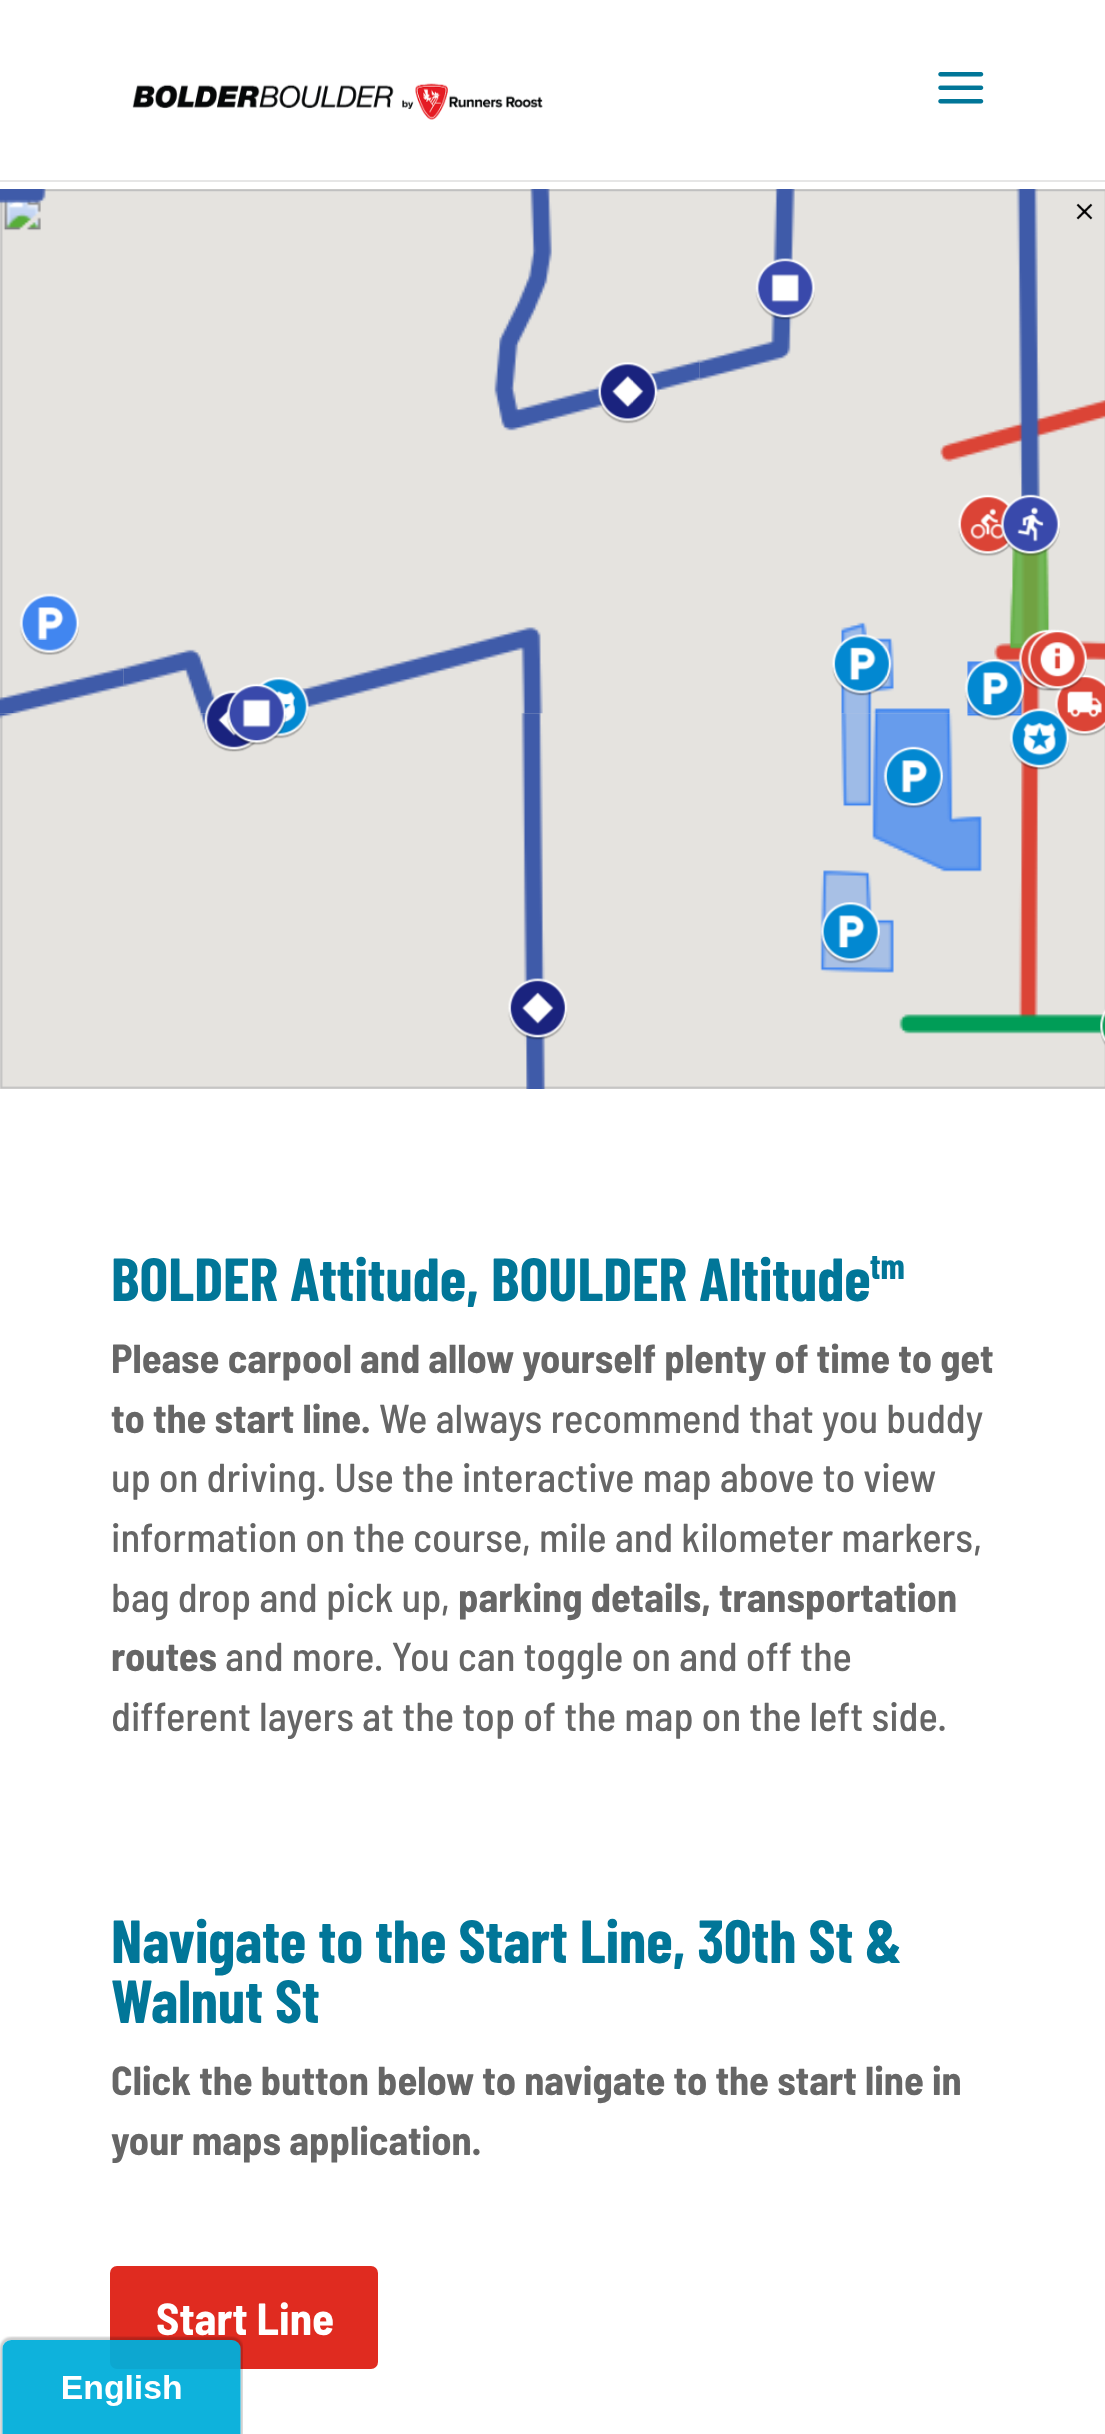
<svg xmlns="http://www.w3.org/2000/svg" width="1105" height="2434">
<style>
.a{font:bold 60.75px Barlow Condensed;fill:#017698}
.b{font:bold 36px Barlow Condensed;fill:#017698}
.c{font:bold 40.5px Barlow Semi Condensed;fill:#666}
.d{font:500 40.5px Barlow Semi Condensed;fill:#666}
.e{font:bold 45px Barlow Semi Condensed;fill:#fff}
</style>
<rect width="100%" height="100%" fill="#fff"/>
<path fill="#e6e6e6" d="M0 180h1105v2H0z"/>
<image href="1.png" x="132" y="83" width="411" height="37"/>
<image href="2.png" x="938" y="72" width="46" height="32"/>
<image href="3.png" x="0" y="189" width="1105" height="900"/>
<rect fill="#e02b20" x="110" y="2266" width="268" height="103" rx="7"/>
<image href="4.png" x="0" y="2336" width="243" height="98"/>
<text class="a" x="111" y="1301">BOLDER Attitude, BOULDER Altitude</text>
<text class="b" x="870" y="1279">tm</text>
<text class="c" x="111" y="1373">Please carpool and allow yourself plenty of time to get</text>
<text class="c" x="111" y="1433">to the start line.</text>
<text class="d" x="379" y="1433">We always recommend that you buddy</text>
<text class="d" x="111" y="1492">up on driving. Use the interactive map above to view</text>
<text class="d" x="111" y="1552">information on the course, mile and kilometer markers,</text>
<text class="d" x="111" y="1612">bag drop and pick up,</text>
<text class="c" x="458" y="1612">parking details, transportation</text>
<text class="c" x="111" y="1671">routes</text>
<text class="d" x="225" y="1671">and more. You can toggle on and off the</text>
<text class="d" x="111" y="1731">different layers at the top of the map on the left side.</text>
<text class="a" x="111" y="1963">Navigate to the Start Line, 30th St &amp;</text>
<text class="a" x="111" y="2023">Walnut St</text>
<text class="c" x="111" y="2095">Click the button below to navigate to the start line in</text>
<text class="c" x="111" y="2155">your maps application.</text>
<text class="e" x="156" y="2335">Start Line</text>
</svg>
